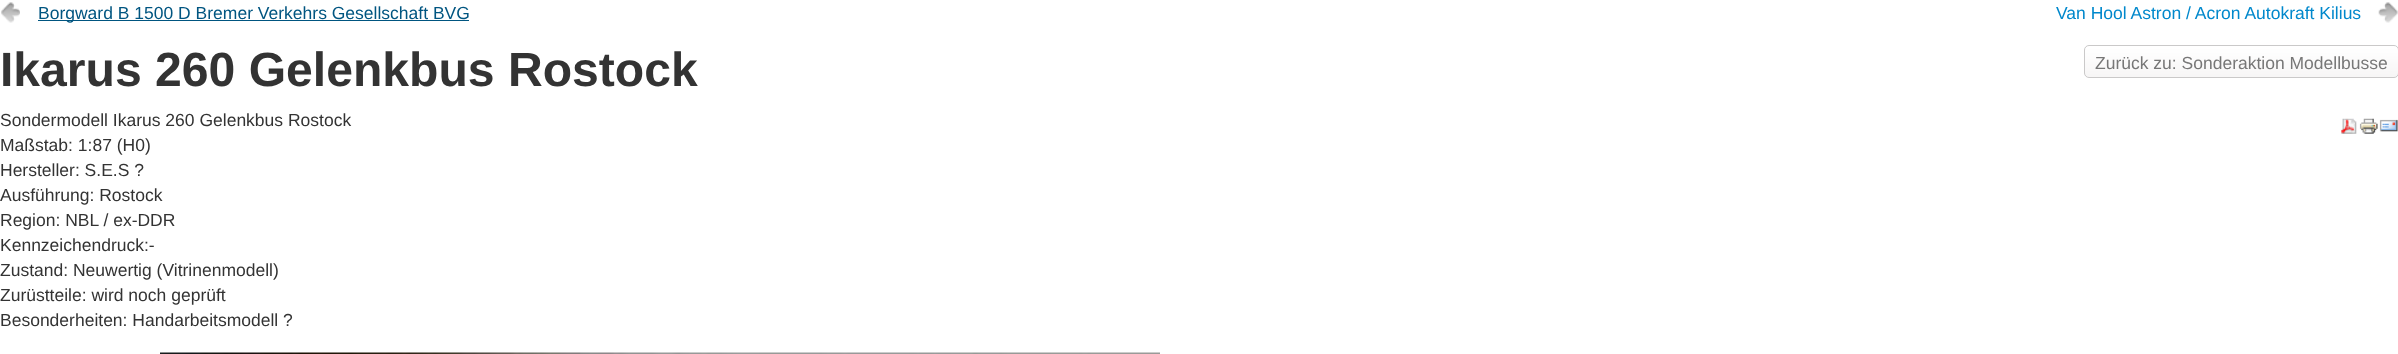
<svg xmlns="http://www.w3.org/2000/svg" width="2398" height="354">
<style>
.a{font:17.5px Liberation Sans;fill:#005580}
.b{font:17.5px Liberation Sans;fill:#08c}
.c{font:bold 48.1px Liberation Sans;fill:#333}
.d{font:17.5px Liberation Sans;fill:#777}
.e{font:17.5px Liberation Sans;fill:#333}
</style>
<rect width="100%" height="100%" fill="#fff"/>
<image href="1.png" x="1" y="2" width="19" height="21"/>
<path fill="#005580" d="M38 20h431v1H38z"/>
<image href="2.png" x="2378" y="2" width="20" height="21"/>
<image href="3.png" x="2084" y="46" width="314" height="31"/>
<rect fill="none" stroke="#cac9c9" x="2084.5" y="45.5" width="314" height="32" rx="4.5"/>
<image href="4.png" x="2341" y="118" width="16" height="16"/>
<image href="5.png" x="2359" y="118" width="19" height="16"/>
<image href="6.png" x="2379" y="119" width="19" height="13"/>
<image href="7.png" x="160" y="352" width="1000" height="2"/>
<text class="a" x="38" y="19">Borgward B 1500 D Bremer Verkehrs Gesellschaft BVG</text>
<text class="b" x="2056" y="19">Van Hool Astron / Acron Autokraft Kilius</text>
<text class="c" x="0" y="86">Ikarus 260 Gelenkbus Rostock</text>
<text class="d" x="2095" y="69">Zurück zu: Sonderaktion Modellbusse</text>
<text class="e" x="0" y="126">Sondermodell Ikarus 260 Gelenkbus Rostock</text>
<text class="e" x="0" y="151">Maßstab: 1:87 (H0)</text>
<text class="e" x="0" y="176">Hersteller: S.E.S ?</text>
<text class="e" x="0" y="201">Ausführung: Rostock</text>
<text class="e" x="0" y="226">Region: NBL / ex-DDR</text>
<text class="e" x="0" y="251">Kennzeichendruck:-</text>
<text class="e" x="0" y="276">Zustand: Neuwertig (Vitrinenmodell)</text>
<text class="e" x="0" y="301">Zurüstteile: wird noch geprüft</text>
<text class="e" x="0" y="326">Besonderheiten: Handarbeitsmodell ?</text>
</svg>
